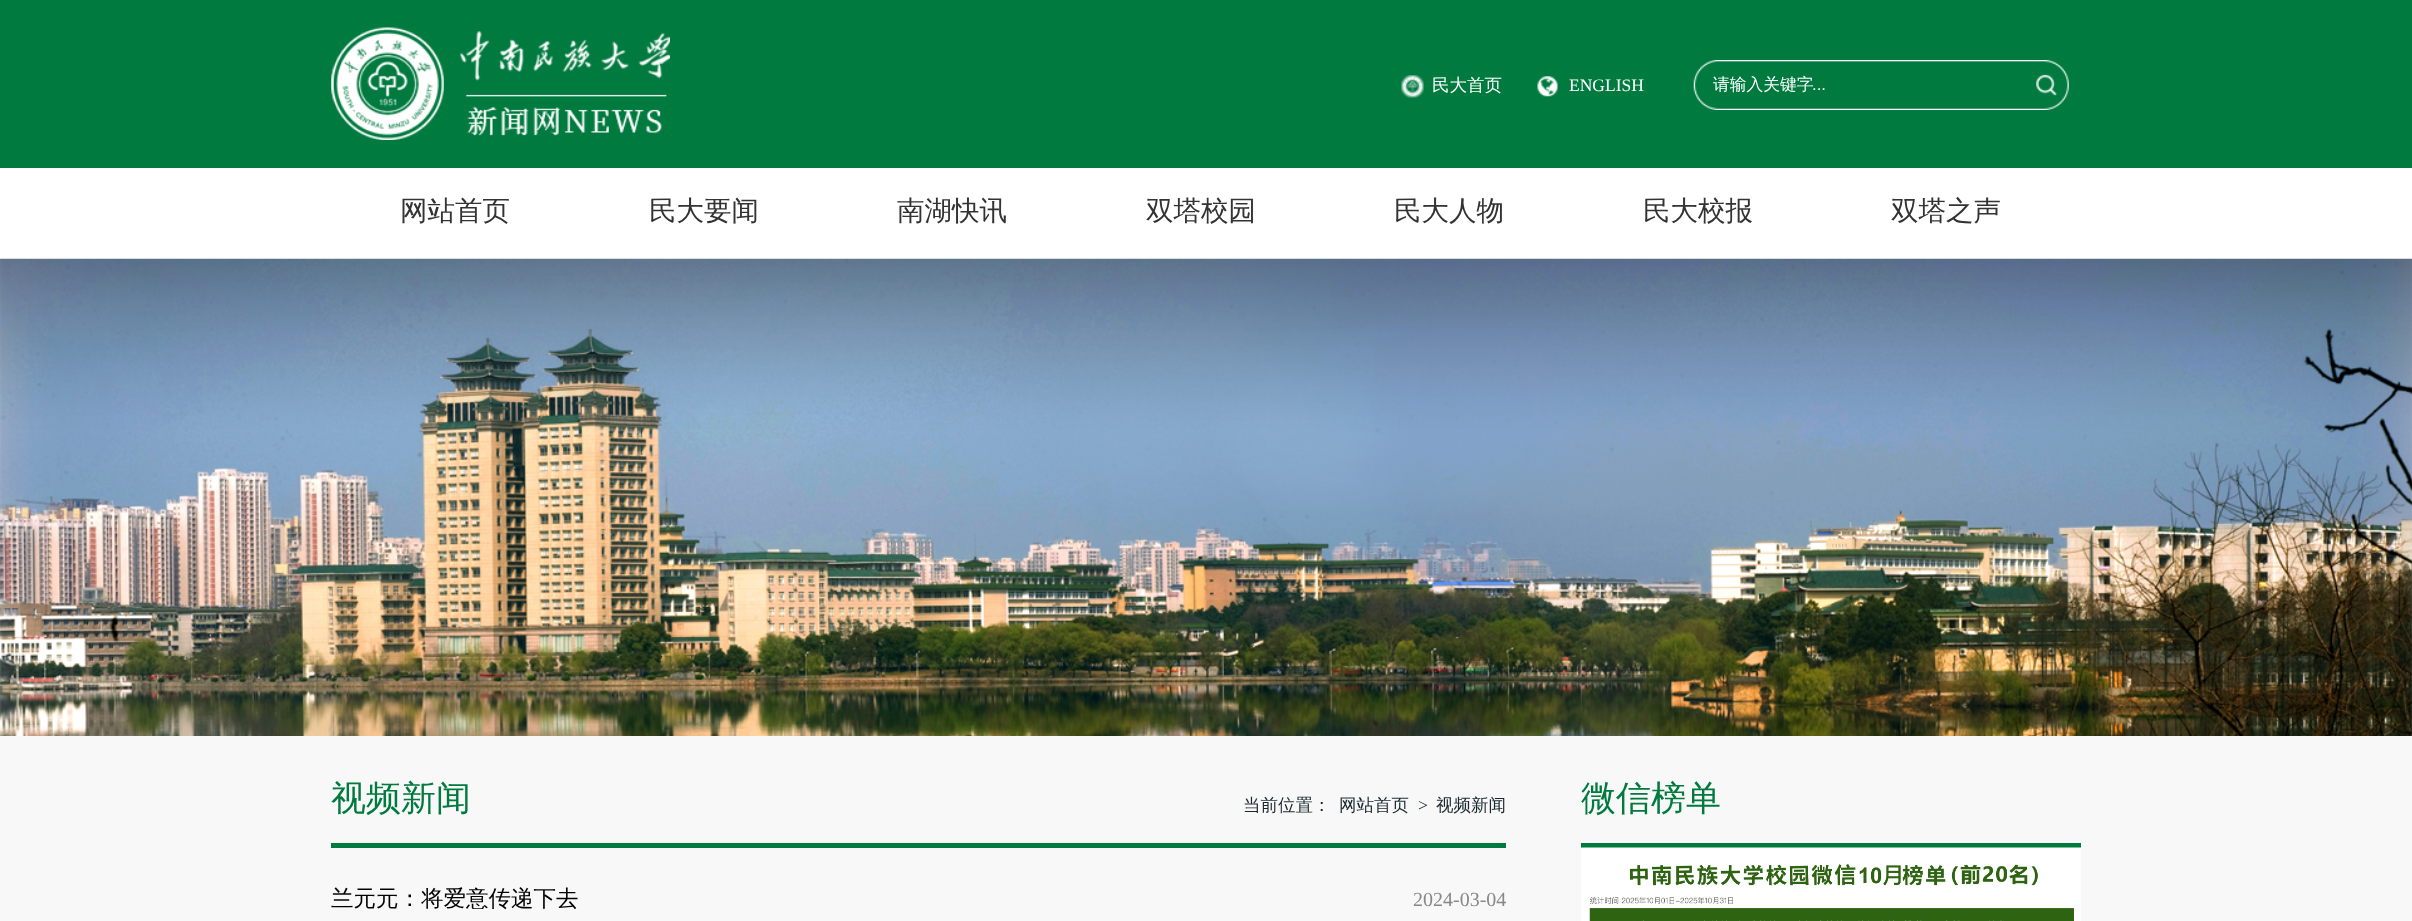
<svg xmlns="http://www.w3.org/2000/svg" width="2412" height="921">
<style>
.a{font:500 17.5px WenQuanYi Zen Hei;fill:#fff}
.b{font:17.5px Liberation Serif;fill:#fff}
.c{font:500 16.75px WenQuanYi Zen Hei;fill:#fff}
.d{font:16.75px Liberation Sans;fill:#fff}
.e{font:500 27.5px WenQuanYi Zen Hei;fill:#333}
.f{font:500 35px WenQuanYi Zen Hei;fill:#007a3f}
.g{font:500 17.5px WenQuanYi Zen Hei;fill:#19282e}
.h{font:17.5px Liberation Serif;fill:#19282e}
.i{font:500 22.5px WenQuanYi Zen Hei;fill:#000}
.j{font:20px Liberation Serif;fill:#888}
</style>
<rect width="100%" height="100%" fill="#fff"/>
<path fill="#007a3f" d="M0 0h2412v168H0z"/>
<image href="1.png" x="331" y="27" width="339" height="113"/>
<image href="2.png" x="1401" y="75" width="23" height="23"/>
<image href="3.png" x="1537" y="76" width="21" height="21"/>
<image href="4.png" x="1693" y="60" width="376" height="50"/>
<image href="5.png" x="0" y="258" width="2412" height="478"/>
<path fill="#f8f8f8" d="M0 736h2412v185H0z"/>
<path fill="#007a3f" d="M331 843h1175v5H331z"/>
<path fill="#007a3f" d="M1581 843h500v5H1581z"/>
<image href="6.png" x="1581" y="847" width="500" height="74"/>
<text class="a" x="1432" y="91">民大首页</text>
<text class="b" x="1569" y="91">ENGLISH</text>
<text class="c" x="1713" y="90">请输入关键字</text>
<text class="d" x="1812" y="90">...</text>
<text class="e" x="400" y="220">网站首页</text>
<text class="e" x="649" y="220">民大要闻</text>
<text class="e" x="897" y="220">南湖快讯</text>
<text class="e" x="1146" y="220">双塔校园</text>
<text class="e" x="1394" y="220">民大人物</text>
<text class="e" x="1643" y="220">民大校报</text>
<text class="e" x="1891" y="220">双塔之声</text>
<text class="f" x="331" y="810">视频新闻</text>
<text class="g" x="1243" y="811">当前位置：</text>
<text class="g" x="1339" y="811">网站首页</text>
<text class="h" x="1418" y="811">&gt;</text>
<text class="g" x="1436" y="811">视频新闻</text>
<text class="i" x="331" y="906">兰元元：将爱意传递下去</text>
<text class="j" x="1413" y="906">2024-03-04</text>
<text class="f" x="1581" y="810">微信榜单</text>
</svg>
